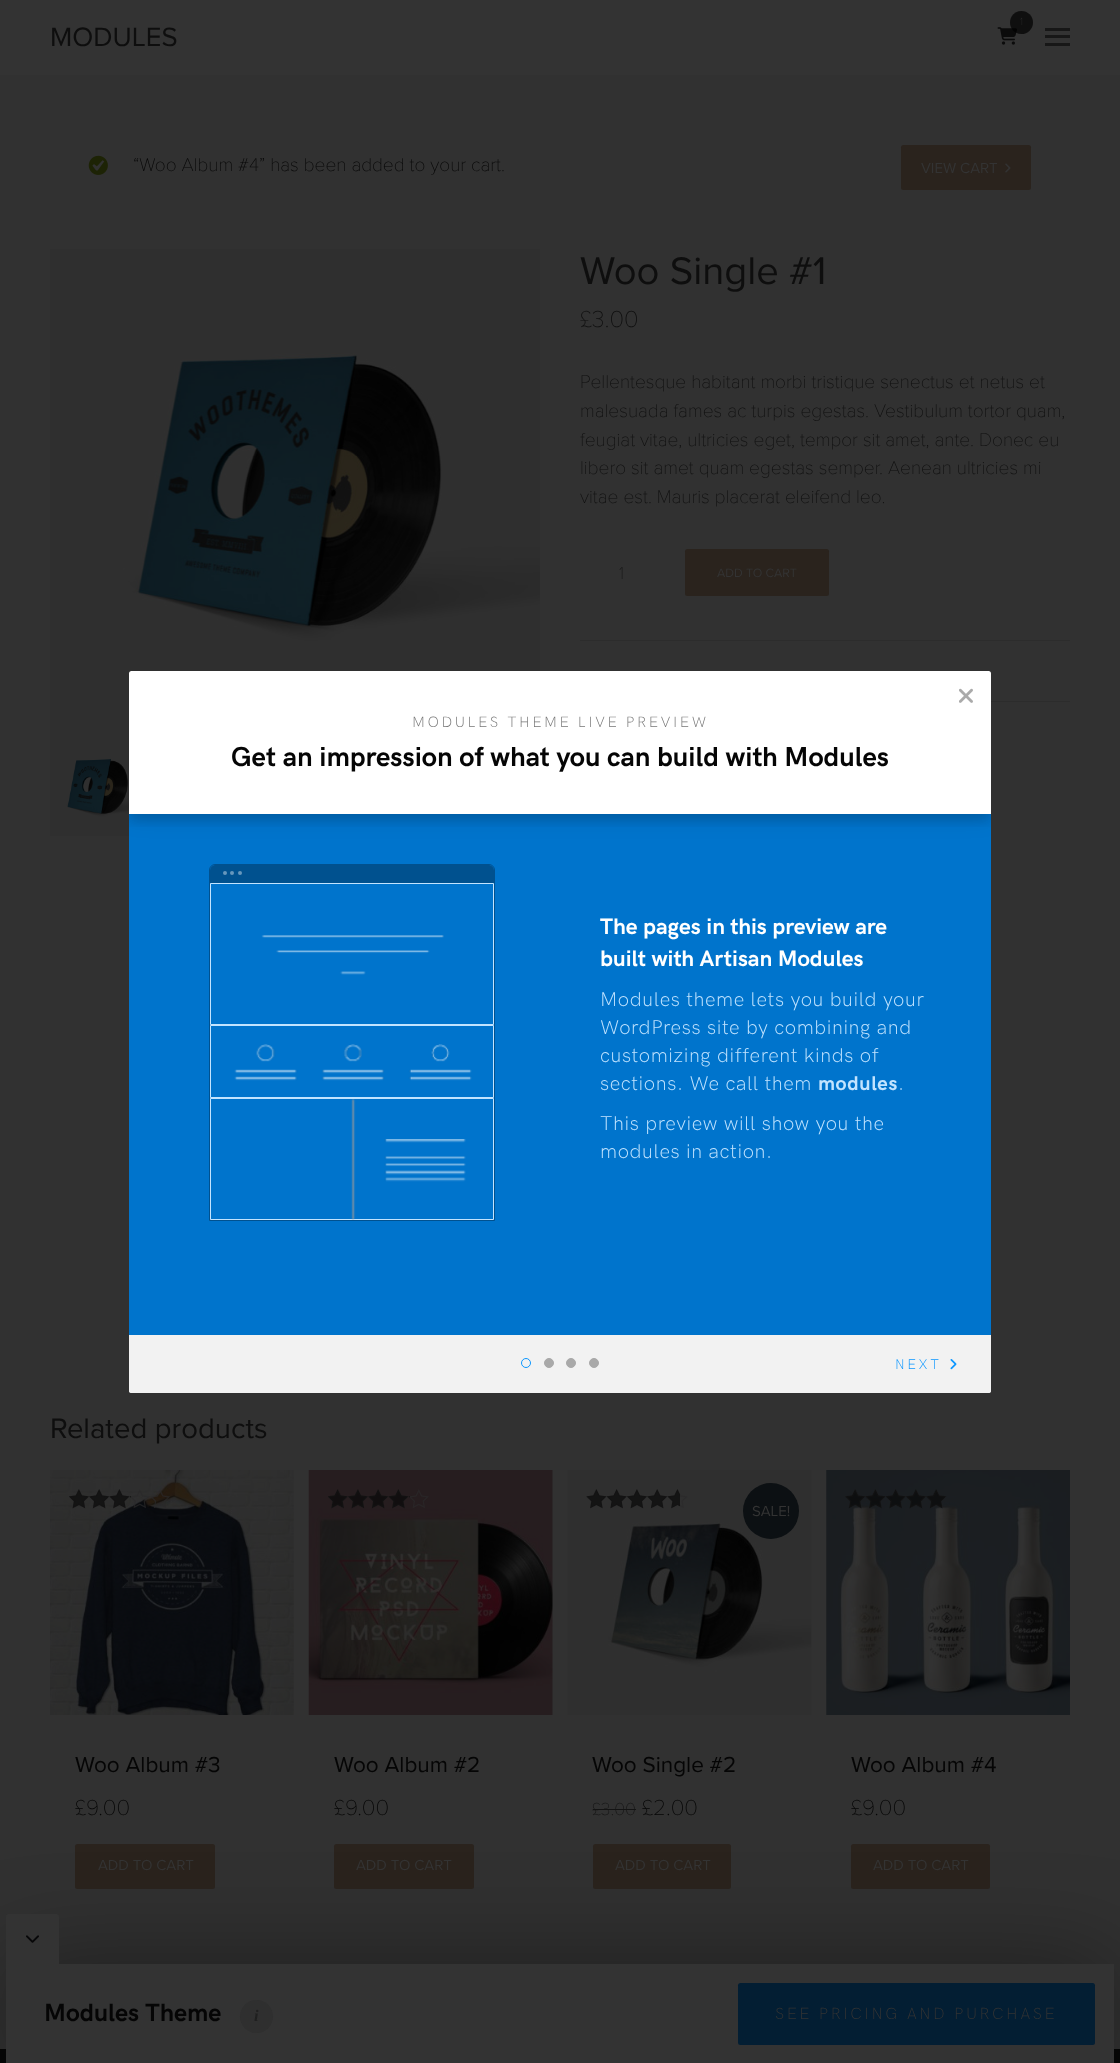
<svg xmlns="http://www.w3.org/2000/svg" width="1120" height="2063">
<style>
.a{font:100 11px Proxima Nova;fill:#333}
.b{font:27.5px Proxima Nova;fill:#0e0e0e}
.c{font:100 19.1px Proxima Nova;fill:#050505}
.d{font:15px Proxima Nova;fill:#333}
.e{font:40px Proxima Nova;fill:#0e0e0e}
.f{font:100 24px Proxima Nova;fill:#0e0e0e}
.g{font:100 19.1px Proxima Nova;fill:#0e0e0e}
.h{font:100 18px Proxima Nova;fill:#141414}
.i{font:12.5px Proxima Nova;fill:#333}
.j{font:29.25px Proxima Nova;fill:#0e0e0e}
.k{font:22.5px Proxima Nova;fill:#050505}
.l{font:100 22.5px Proxima Nova;fill:#050505}
.m{font:300 15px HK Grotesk;letter-spacing:2.5px;fill:#777}
.n{font:bold 27.5px HK Grotesk;fill:#050505}
.o{font:bold 22.5px HK Grotesk;fill:#fff}
.p{font:300 20px HK Grotesk;letter-spacing:0.6px;fill:#c2e4ff}
.q{font:bold 20px HK Grotesk;letter-spacing:0.6px;fill:#c2e4ff}
.r{font:300 14px HK Grotesk;letter-spacing:2.5px;fill:#0d97ff}
.s{font:bold 25px HK Grotesk;fill:#050505}
.t{font:italic bold 16.25px Liberation Serif;fill:#1f1f1f}
.u{font:300 16.25px HK Grotesk;letter-spacing:2.5px;fill:#333}
</style>
<defs>
<clipPath id="clip1"><rect x="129" y="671" width="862" height="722" rx="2.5"/></clipPath>
<clipPath id="clip2"><path d="M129 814h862v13H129z"/></clipPath>
<clipPath id="clip3"><path d="M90 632h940v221h-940zm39 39h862v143h-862z" clip-rule="evenodd"/></clipPath>
</defs>
<rect width="100%" height="100%" fill="#060606"/>
<path fill="#333" d="M0 0h1120v75H0z"/>
<image href="1.png" x="997" y="27" width="20" height="18"/>
<circle fill="#000000b3" cx="1021.5" cy="22.5" r="11.5"/>
<path fill="#171717" d="M1045 28h25v3H1045z"/>
<path fill="#171717" d="M1045 35h25v3H1045z"/>
<path fill="#171717" d="M1045 43h25v3H1045z"/>
<path fill="#313131" d="M0 75h1120v1974H0z"/>
<image href="2.png" x="88" y="155" width="20" height="20"/>
<rect fill="#2a231d" x="901" y="145" width="130" height="45" rx="2.5"/>
<image href="3.png" x="1005" y="163" width="6" height="10"/>
<image href="4.png" x="50" y="249" width="490" height="489"/>
<image href="5.png" x="50" y="738" width="79" height="98"/>
<rect fill="#2a231d" x="685" y="549" width="144" height="47" rx="2.5"/>
<path fill="#2c2c2c" d="M580 640h490v1H580z"/>
<path fill="#2c2c2c" d="M991 701h79v1H991z"/>
<image href="6.png" x="50" y="1470" width="244" height="245"/>
<image href="7.png" x="69" y="1489" width="101" height="20"/>
<image href="8.png" x="69" y="1489" width="62" height="20"/>
<rect fill="#2a231d" x="75" y="1844" width="140" height="45" rx="2.5"/>
<image href="9.png" x="308" y="1470" width="245" height="245"/>
<image href="10.png" x="328" y="1489" width="101" height="19"/>
<image href="11.png" x="328" y="1489" width="82" height="20"/>
<rect fill="#2a231d" x="334" y="1844" width="140" height="45" rx="2.5"/>
<image href="12.png" x="567" y="1470" width="245" height="245"/>
<circle fill="#0c1013" cx="771" cy="1511" r="28"/>
<image href="13.png" x="586" y="1489" width="102" height="19"/>
<image href="14.png" x="586" y="1489" width="94" height="20"/>
<rect fill="#2a231d" x="593" y="1844" width="138" height="45" rx="2.5"/>
<image href="15.png" x="826" y="1470" width="244" height="245"/>
<image href="16.png" x="845" y="1489" width="102" height="20"/>
<image href="17.png" x="845" y="1489" width="102" height="20"/>
<rect fill="#2a231d" x="851" y="1844" width="139" height="45" rx="2.5"/>
<rect fill="#fff" x="129" y="671" width="862" height="722" rx="2.5"/>
<path fill="#0074cc" d="M129 814h862v521H129z"/>
<g clip-path="url(#clip1)">
<g clip-path="url(#clip2)">
<path fill="#0000001f" filter="blur(6px)" d="M129 679h862v142H129z"/>
</g>
</g>
<g clip-path="url(#clip1)">
<g clip-path="url(#clip3)">
<path fill="#00000026" filter="blur(12.5px)" d="M129 671h862v143H129z"/>
</g>
</g>
<image href="18.png" x="959" y="688" width="14" height="15"/>
<path fill="none" stroke="#00518f" d="M215 864.5h274c3 0 5.5 2.5 5.5 5.5v350.5h-285v-350.5c0-3 2.5-5.5 5.5-5.5z"/>
<path fill="#00518f" d="M216 865h272c3.5 0 6 2.5 6 6v12h-284v-12c0-3.5 2.5-6 6-6z"/>
<circle fill="#6697bc" cx="225" cy="873" r="2"/>
<circle fill="#6697bc" cx="232" cy="873" r="2"/>
<circle fill="#6697bc" cx="240" cy="873" r="2"/>
<path fill="none" stroke="#c2e4ff" d="M210.5 883.5h283v141H210.5z"/>
<image href="19.png" x="261" y="935" width="183" height="40"/>
<path fill="none" stroke="#c2e4ff" d="M210.5 1025.5h283v72H210.5z"/>
<image href="20.png" x="234" y="1044" width="238" height="37"/>
<path fill="none" stroke="#c2e4ff" d="M210.5 1098.5h283v121H210.5z"/>
<image href="21.png" x="351" y="1099" width="115" height="121"/>
<path fill="#f2f2f2" d="M129 1335h862v55.5c0 1.5-1 2.5-2.5 2.5h-857c-1.5 0-2.5-1-2.5-2.5z"/>
<circle fill="none" stroke="#0d97ff" cx="526" cy="1363" r="4.5"/>
<circle fill="#a9a9a9" stroke="#a9a9a9" cx="549" cy="1363" r="4.5"/>
<circle fill="#a9a9a9" stroke="#a9a9a9" cx="571" cy="1363" r="4.5"/>
<circle fill="#a9a9a9" stroke="#a9a9a9" cx="594" cy="1363" r="4.5"/>
<image href="22.png" x="950" y="1359" width="7" height="11"/>
<path fill="#00000066" filter="blur(50px)" d="M6 1964h1108v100H6z"/>
<path fill="#333" d="M6 1964h1108v99H6z"/>
<path fill="#333" d="M8.5 1914h48c1.5 0 2.5 1 2.5 2.5v47.5h-53v-47.5c0-1.5 1-2.5 2.5-2.5z"/>
<image href="23.png" x="26" y="1935" width="13" height="8"/>
<circle fill="#2f2f2f" cx="256.5" cy="2016.5" r="16.5"/>
<rect fill="#031e33" x="738" y="1983" width="357" height="62" rx="2.5"/>
<text class="a" x="1020" y="25">1</text>
<text class="b" x="50" y="46">MODULES</text>
<text class="c" x="133" y="171">“Woo Album #4” has been added to your cart.</text>
<text class="d" x="921" y="173">VIEW CART</text>
<text class="e" x="580" y="284">Woo Single #1</text>
<text class="f" x="580" y="327">£3.00</text>
<text class="g" x="580" y="388">Pellentesque habitant morbi tristique senectus et netus et</text>
<text class="g" x="580" y="417">malesuada fames ac turpis egestas. Vestibulum tortor quam,</text>
<text class="g" x="580" y="446">feugiat vitae, ultricies eget, tempor sit amet, ante. Donec eu</text>
<text class="g" x="580" y="474">libero sit amet quam egestas semper. Aenean ultricies mi</text>
<text class="g" x="580" y="503">vitae est. Mauris placerat eleifend leo.</text>
<text class="h" x="619" y="579">1</text>
<text class="i" x="717" y="577">ADD TO CART</text>
<text class="j" x="50" y="1438">Related products</text>
<text class="k" x="75" y="1772">Woo Album #3</text>
<text class="l" x="75" y="1815">£9.00</text>
<text class="d" x="98" y="1870">ADD TO CART</text>
<text class="k" x="334" y="1772">Woo Album #2</text>
<text class="l" x="334" y="1815">£9.00</text>
<text class="d" x="356" y="1870">ADD TO CART</text>
<text class="d" x="752" y="1516">SALE!</text>
<text class="k" x="592" y="1772">Woo Single #2</text>
<text class="h" x="592" y="1815">£3.00</text>
<path fill="#131313" d="M593 1809h43v1H593z"/>
<text class="l" x="642" y="1815">£2.00</text>
<text class="d" x="615" y="1870">ADD TO CART</text>
<text class="k" x="851" y="1772">Woo Album #4</text>
<text class="l" x="851" y="1815">£9.00</text>
<text class="d" x="873" y="1870">ADD TO CART</text>
<text class="m" x="412" y="727">MODULES THEME LIVE PREVIEW</text>
<text class="n" x="231" y="766">Get an impression of what you can build with Modules</text>
<text class="o" x="600" y="934">The pages in this preview are</text>
<text class="o" x="600" y="966">built with Artisan Modules</text>
<text class="p" x="600" y="1006">Modules theme lets you build your</text>
<text class="p" x="600" y="1034">WordPress site by combining and</text>
<text class="p" x="600" y="1062">customizing different kinds of</text>
<text class="p" x="600" y="1090">sections. We call them</text>
<text class="q" x="818" y="1090">modules</text>
<text class="p" x="898" y="1090">.</text>
<text class="p" x="600" y="1130">This preview will show you the</text>
<text class="p" x="600" y="1158">modules in action.</text>
<text class="r" x="895" y="1369">NEXT</text>
<text class="s" x="44" y="2021">Modules Theme</text>
<text class="t" x="254" y="2021">i</text>
<text class="u" x="775" y="2019">SEE PRICING AND PURCHASE</text>
</svg>
